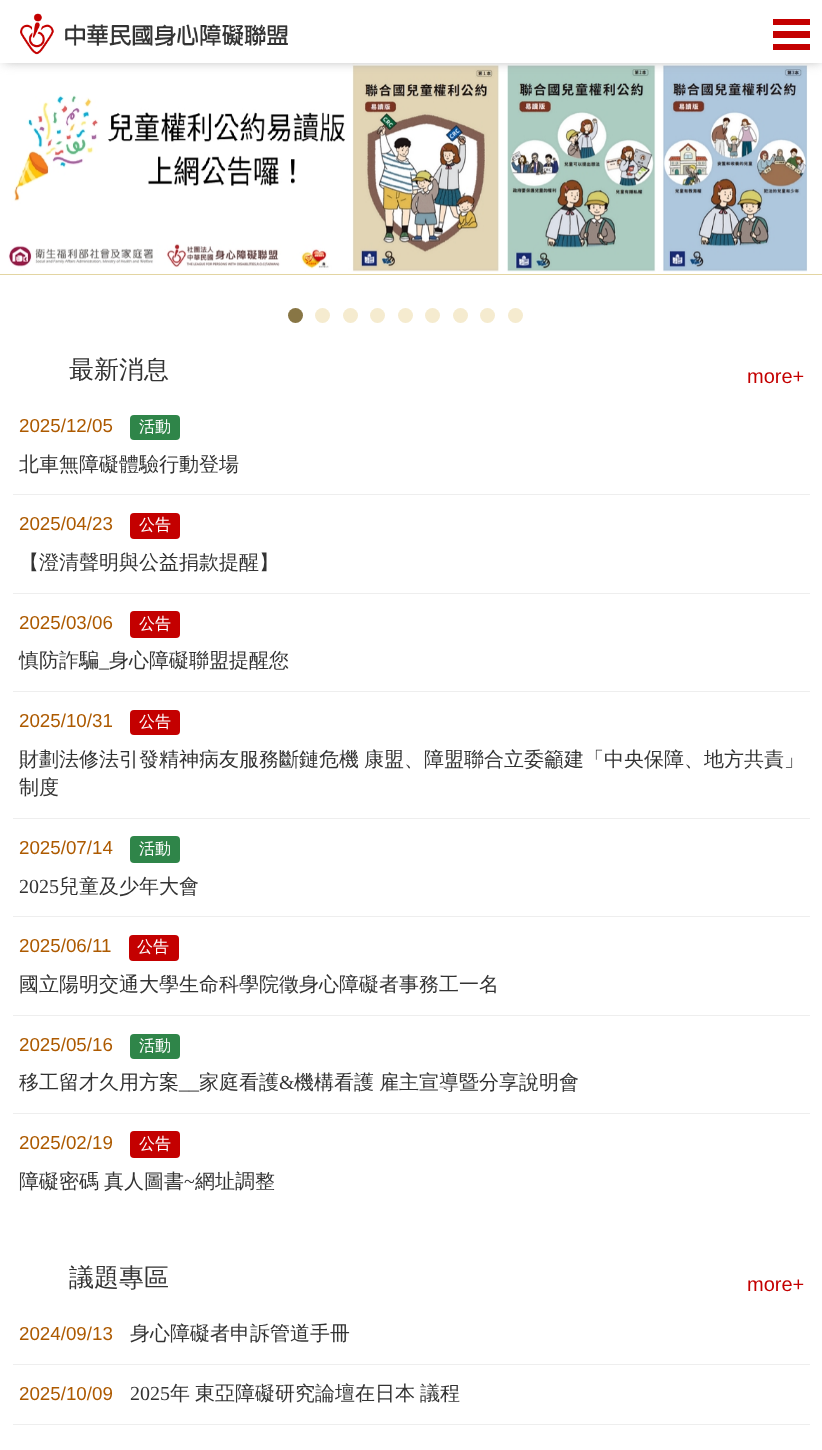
<svg xmlns="http://www.w3.org/2000/svg" width="822" height="1450">
<style>
.a{font:500 25px WenQuanYi Zen Hei;fill:#333}
.b{font:20px Liberation Sans;fill:#c40000}
.c{font:18.75px Liberation Sans;fill:#ad5a00}
.d{font:500 16px WenQuanYi Zen Hei;fill:#fff}
.e{font:500 20px WenQuanYi Zen Hei;fill:#333}
.f{font:20px Liberation Serif;fill:#333}
</style>
<rect width="100%" height="100%" fill="#fff"/>
<image href="2.png" x="8" y="63" width="800" height="209"/>
<path fill="#aaa" filter="blur(6px)" d="M4 4h817v57H4z"/>
<path fill="#fff" d="M0 0h822v63H0z"/>
<image href="1.png" x="20" y="13" width="268" height="42"/>
<path fill="#c40000" d="M773 19h37v6H773z"/>
<path fill="#c40000" d="M773 31h37v7H773z"/>
<path fill="#c40000" d="M773 44h37v6H773z"/>
<path fill="#e3d5a2" d="M0 274h822v1H0z"/>
<circle fill="#887645" cx="295.5" cy="315.5" r="7.5"/>
<circle fill="#f5ebcf" cx="322.5" cy="315.5" r="7.5"/>
<circle fill="#f5ebcf" cx="350.5" cy="315.5" r="7.5"/>
<circle fill="#f5ebcf" cx="377.5" cy="315.5" r="7.5"/>
<circle fill="#f5ebcf" cx="405.5" cy="315.5" r="7.5"/>
<circle fill="#f5ebcf" cx="432.5" cy="315.5" r="7.5"/>
<circle fill="#f5ebcf" cx="460.5" cy="315.5" r="7.5"/>
<circle fill="#f5ebcf" cx="487.5" cy="315.5" r="7.5"/>
<circle fill="#f5ebcf" cx="515.5" cy="315.5" r="7.5"/>
<rect fill="#2f8549" x="130" y="415" width="50" height="25" rx="4"/>
<path fill="#eee" d="M13 494h797v1H13z"/>
<rect fill="#c40000" x="130" y="513" width="50" height="26" rx="4"/>
<path fill="#eee" d="M13 593h797v1H13z"/>
<rect fill="#c40000" x="130" y="611" width="50" height="27" rx="4"/>
<path fill="#eee" d="M13 691h797v1H13z"/>
<rect fill="#c40000" x="130" y="710" width="50" height="25" rx="4"/>
<path fill="#eee" d="M13 818h797v1H13z"/>
<rect fill="#2f8549" x="130" y="836" width="50" height="27" rx="4"/>
<path fill="#eee" d="M13 916h797v1H13z"/>
<rect fill="#c40000" x="129" y="935" width="50" height="26" rx="4"/>
<path fill="#eee" d="M13 1015h797v1H13z"/>
<rect fill="#2f8549" x="130" y="1034" width="50" height="25" rx="4"/>
<path fill="#eee" d="M13 1113h797v1H13z"/>
<rect fill="#c40000" x="130" y="1131" width="50" height="27" rx="4"/>
<path fill="#eee" d="M13 1364h797v1H13z"/>
<path fill="#eee" d="M13 1424h797v1H13z"/>
<text class="a" x="69" y="378">最新消息</text>
<text class="b" x="747" y="383">more+</text>
<text class="c" x="19" y="432">2025/12/05</text>
<text class="d" x="139" y="432">活動</text>
<text class="e" x="19" y="471">北車無障礙體驗行動登場</text>
<text class="c" x="19" y="530">2025/04/23</text>
<text class="d" x="139" y="530">公告</text>
<text class="e" x="19" y="569">【澄清聲明與公益捐款提醒】</text>
<text class="c" x="19" y="629">2025/03/06</text>
<text class="d" x="139" y="629">公告</text>
<text class="e" x="19" y="667">慎防詐騙</text>
<text class="f" x="99" y="667">_</text>
<text class="e" x="109" y="667">身心障礙聯盟提醒您</text>
<text class="c" x="19" y="727">2025/10/31</text>
<text class="d" x="139" y="727">公告</text>
<text class="e" x="19" y="766" word-spacing="-1">財劃法修法引發精神病友服務斷鏈危機 康盟、障盟聯合立委籲建「中央保障、地方共責」</text>
<text class="e" x="19" y="794">制度</text>
<text class="c" x="19" y="854">2025/07/14</text>
<text class="d" x="139" y="854">活動</text>
<text class="f" x="19" y="893">2025</text>
<text class="e" x="59" y="893">兒童及少年大會</text>
<text class="c" x="19" y="952">2025/06/11</text>
<text class="d" x="137" y="952">公告</text>
<text class="e" x="19" y="991">國立陽明交通大學生命科學院徵身心障礙者事務工一名</text>
<text class="c" x="19" y="1051">2025/05/16</text>
<text class="d" x="139" y="1051">活動</text>
<text class="e" x="19" y="1089">移工留才久用方案</text>
<text class="e" x="199" y="1089">家庭看護</text>
<text class="f" x="279" y="1089">&amp;</text>
<text class="e" x="294" y="1089" word-spacing="-1">機構看護 雇主宣導暨分享說明會</text>
<text class="f" x="179" y="1089">__</text>
<text class="c" x="19" y="1149">2025/02/19</text>
<text class="d" x="139" y="1149">公告</text>
<text class="e" x="19" y="1188" word-spacing="-1">障礙密碼 真人圖書</text>
<text class="f" x="184" y="1188">~</text>
<text class="e" x="195" y="1188">網址調整</text>
<text class="a" x="69" y="1286">議題專區</text>
<text class="b" x="747" y="1291">more+</text>
<text class="c" x="19" y="1340">2024/09/13</text>
<text class="e" x="130" y="1340">身心障礙者申訴管道手冊</text>
<text class="c" x="19" y="1400">2025/10/09</text>
<text class="f" x="130" y="1400">2025</text>
<text class="e" x="170" y="1400" word-spacing="-1">年 東亞障礙研究論壇在日本 議程</text>
</svg>
